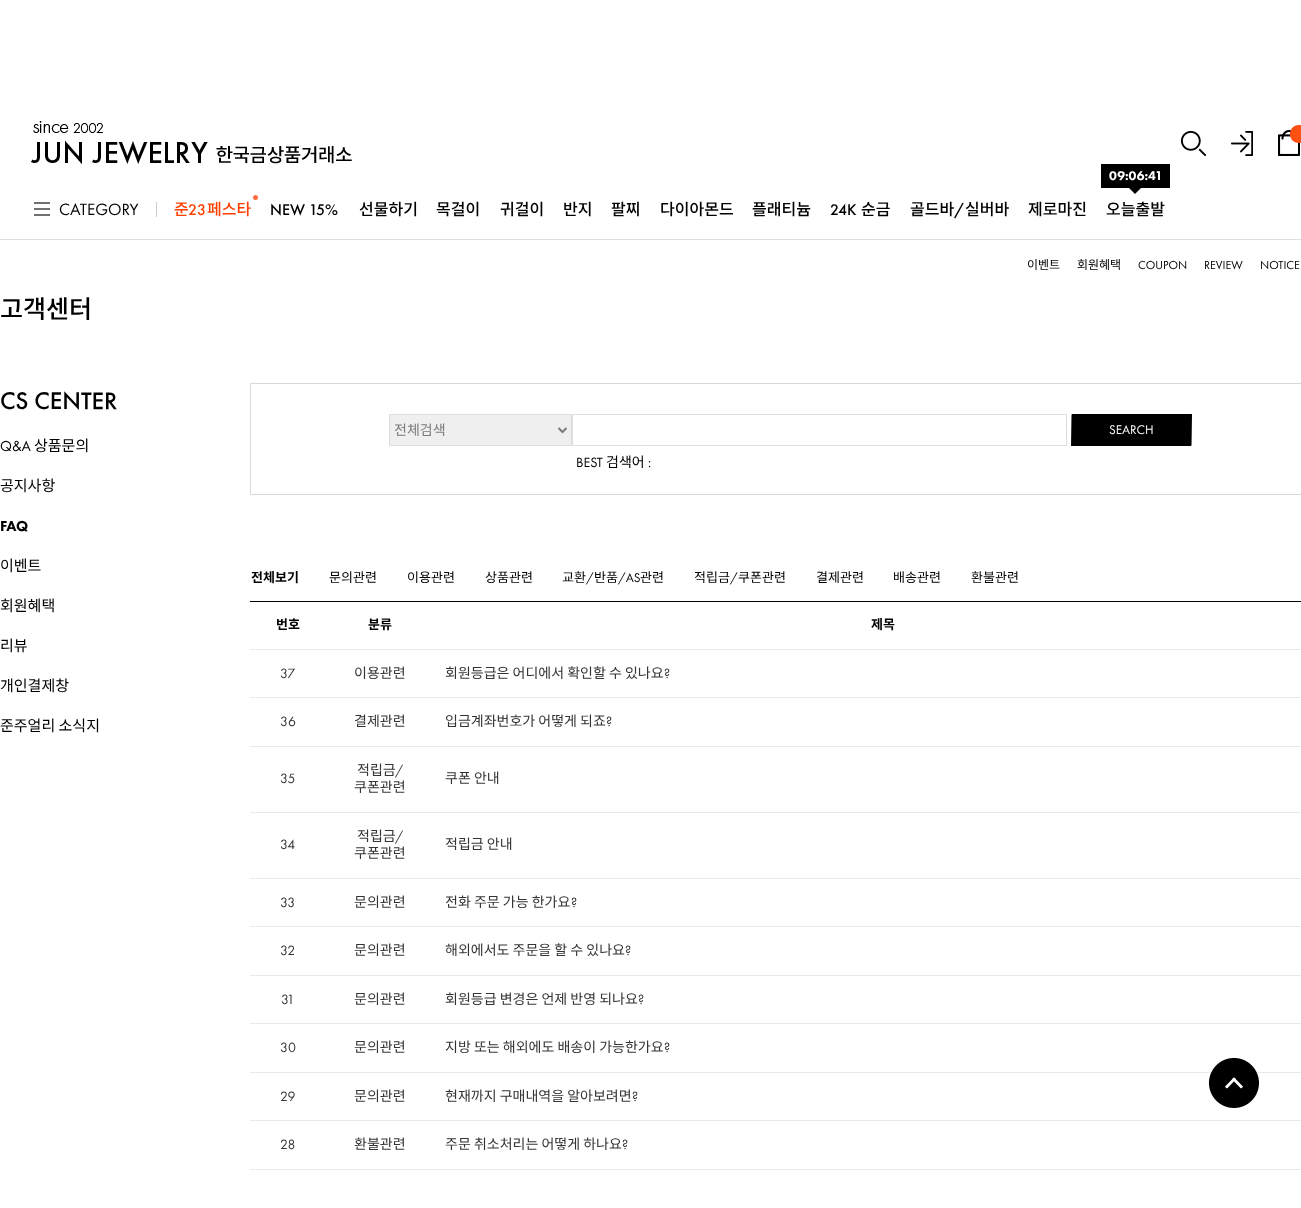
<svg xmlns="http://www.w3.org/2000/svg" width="1301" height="1208">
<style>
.a{font:17px Futura PT;fill:#000}
.b{font:500 16px Noto Sans KR;fill:#ff3f00}
.c{font:500 16px Futura PT;fill:#ff3f00}
.d{font:500 16px Futura PT;fill:#000}
.e{font:500 16px Noto Sans KR;fill:#000}
.f{font:900 13px Futura PT;fill:#fff}
.g{font:12px Noto Sans KR;fill:#000}
.h{font:12px Futura PT;fill:#000}
.i{font:500 25px Noto Sans KR;fill:#000}
.j{font:500 25px Futura PT;fill:#000}
.k{font:15px Futura PT;fill:#000}
.l{font:15px Noto Sans KR;fill:#000}
.m{font:900 15px Futura PT;fill:#000}
.n{font:14px Noto Sans KR;fill:#7b7b7b}
.o{font:13px Futura PT;fill:#fff}
.p{font:14px Futura PT;fill:#000}
.q{font:14px Noto Sans KR;fill:#000}
.r{font:bold 13px Noto Sans KR;fill:#000}
.s{font:13px Noto Sans KR;fill:#000}
.t{font:13px Futura PT;fill:#000}
.u{font:14px Futura PT;fill:#343434}
.v{font:14px Noto Sans KR;fill:#343434}
</style>
<rect width="100%" height="100%" fill="#fff"/>
<image href="1.png" x="31" y="121" width="321" height="44"/>
<image href="2.png" x="1181" y="131" width="25" height="25"/>
<image href="3.png" x="1231" y="131" width="22" height="25"/>
<image href="4.png" x="1278" y="130" width="22" height="26"/>
<path fill="#ff5013" d="M1299 125c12 0 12 18 0 18c-12 0-12-18 0-18z"/>
<path fill="#dfdfdf" d="M0 239h1301v1H0z"/>
<path fill="#717171" d="M34 208h16v2H34z"/>
<path fill="#717171" d="M34 202h16v2H34z"/>
<path fill="#717171" d="M34 214h16v2H34z"/>
<path fill="#cbcbcb" d="M156 202h1v15H156z"/>
<circle fill="#ff6d44" cx="255.5" cy="197.5" r="2.5"/>
<path fill="#000" d="M1101 164h69v24H1101z"/>
<path fill="#000" d="M1129 188h12l-6 6z"/>
<path fill="none" stroke="#d8d8d8" d="M250.5 383.5h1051v111H250.5z"/>
<path fill="#efefef" stroke="#ddd" d="M389.5 414.5h182v31H389.5z"/>
<path fill="none" stroke="#7b7b7b" stroke-width="2" d="M558.5 428l4 4l4-4"/>
<path fill="none" stroke="#ddd" d="M572.5 414.5h494v31H572.5z"/>
<path fill="#000" d="M1072 414h120l-1 32h-120z"/>
<path fill="none" stroke="#000" d="M1072 414.5h119v31h-119z"/>
<path fill="#000" d="M250 601h1051v1H250z"/>
<path fill="#e9e9e9" d="M250 649h1051v1H250z"/>
<path fill="#e9e9e9" d="M250 697h1051v1H250z"/>
<path fill="#e9e9e9" d="M250 746h1051v1H250z"/>
<path fill="#e9e9e9" d="M250 812h1051v1H250z"/>
<path fill="#e9e9e9" d="M250 878h1051v1H250z"/>
<path fill="#e9e9e9" d="M250 926h1051v1H250z"/>
<path fill="#e9e9e9" d="M250 975h1051v1H250z"/>
<path fill="#e9e9e9" d="M250 1023h1051v1H250z"/>
<path fill="#e9e9e9" d="M250 1072h1051v1H250z"/>
<path fill="#e9e9e9" d="M250 1120h1051v1H250z"/>
<path fill="#e9e9e9" d="M250 1169h1051v1H250z"/>
<image href="5.png" x="1208" y="1057" width="51" height="51"/>
<text class="a" x="59" y="215">CATEGORY</text>
<text class="b" x="174" y="215">준</text>
<text class="c" x="188" y="215">23</text>
<text class="b" x="207" y="215">페스타</text>
<text class="d" x="270" y="215">NEW 15%</text>
<text class="e" x="359" y="215">선물하기</text>
<text class="e" x="436" y="215">목걸이</text>
<text class="e" x="500" y="215">귀걸이</text>
<text class="e" x="563" y="215">반지</text>
<text class="e" x="611" y="215">팔찌</text>
<text class="e" x="660" y="215">다이아몬드</text>
<text class="e" x="752" y="215">플래티늄</text>
<text class="d" x="830" y="215">24K</text>
<text class="e" x="861" y="215">순금</text>
<text class="e" x="910" y="215">골드바</text>
<text class="d" x="954" y="215">/</text>
<text class="e" x="965" y="215">실버바</text>
<text class="e" x="1028" y="215">제로마진</text>
<text class="f" x="1109" y="180">09:06:41</text>
<text class="e" x="1106" y="215">오늘출발</text>
<text class="g" x="1027" y="269">이벤트</text>
<text class="g" x="1077" y="269">회원혜택</text>
<text class="h" x="1138" y="269">COUPON</text>
<text class="h" x="1204" y="269">REVIEW</text>
<text class="h" x="1260" y="269">NOTICE</text>
<text class="i" x="0" y="318">고객센터</text>
<text class="j" x="0" y="409" transform="rotate(0.1 0 409)">CS CENTER</text>
<text class="k" x="0" y="451">Q&amp;A</text>
<text class="l" x="34" y="451">상품문의</text>
<text class="l" x="0" y="491">공지사항</text>
<text class="m" x="0" y="531">FAQ</text>
<text class="l" x="0" y="571">이벤트</text>
<text class="l" x="0" y="611">회원혜택</text>
<text class="l" x="0" y="651">리뷰</text>
<text class="l" x="0" y="691">개인결제창</text>
<text class="l" x="0" y="731">준주얼리 소식지</text>
<text class="n" x="394" y="435">전체검색</text>
<text class="o" x="1109" y="434">SEARCH</text>
<text class="p" x="576" y="467">BEST</text>
<text class="q" x="606" y="467">검색어</text>
<text class="p" x="648" y="467">:</text>
<text class="r" x="251" y="582">전체보기</text>
<text class="s" x="329" y="582">문의관련</text>
<text class="s" x="407" y="582">이용관련</text>
<text class="s" x="485" y="582">상품관련</text>
<text class="s" x="562" y="582">교환</text>
<text class="t" x="586" y="582">/</text>
<text class="s" x="594" y="582">반품</text>
<text class="t" x="618" y="582">/AS</text>
<text class="s" x="640" y="582">관련</text>
<text class="s" x="694" y="582">적립금</text>
<text class="t" x="730" y="582">/</text>
<text class="s" x="738" y="582">쿠폰관련</text>
<text class="s" x="816" y="582">결제관련</text>
<text class="s" x="893" y="582">배송관련</text>
<text class="s" x="971" y="582">환불관련</text>
<text class="r" x="276" y="629">번호</text>
<text class="r" x="368" y="629">분류</text>
<text class="r" x="871" y="629">제목</text>
<text class="u" x="280" y="678">37</text>
<text class="v" x="354" y="678">이용관련</text>
<text class="v" x="445" y="678">회원등급은 어디에서 확인할 수 있나요</text>
<text class="u" x="664" y="678">?</text>
<text class="u" x="280" y="726">36</text>
<text class="v" x="354" y="726">결제관련</text>
<text class="v" x="445" y="726">입금계좌번호가 어떻게 되죠</text>
<text class="u" x="606" y="726">?</text>
<text class="u" x="280" y="783">35</text>
<text class="v" x="357" y="775">적립금</text>
<text class="u" x="395" y="775">/</text>
<text class="v" x="354" y="792">쿠폰관련</text>
<text class="v" x="445" y="783">쿠폰 안내</text>
<text class="u" x="280" y="849">34</text>
<text class="v" x="357" y="841">적립금</text>
<text class="u" x="395" y="841">/</text>
<text class="v" x="354" y="858">쿠폰관련</text>
<text class="v" x="445" y="849">적립금 안내</text>
<text class="u" x="280" y="907">33</text>
<text class="v" x="354" y="907">문의관련</text>
<text class="v" x="445" y="907">전화 주문 가능 한가요</text>
<text class="u" x="571" y="907">?</text>
<text class="u" x="280" y="955">32</text>
<text class="v" x="354" y="955">문의관련</text>
<text class="v" x="445" y="955">해외에서도 주문을 할 수 있나요</text>
<text class="u" x="625" y="955">?</text>
<text class="u" x="281" y="1004">31</text>
<text class="v" x="354" y="1004">문의관련</text>
<text class="v" x="445" y="1004">회원등급 변경은 언제 반영 되나요</text>
<text class="u" x="638" y="1004">?</text>
<text class="u" x="280" y="1052">30</text>
<text class="v" x="354" y="1052">문의관련</text>
<text class="v" x="445" y="1052">지방 또는 해외에도 배송이 가능한가요</text>
<text class="u" x="664" y="1052">?</text>
<text class="u" x="280" y="1101">29</text>
<text class="v" x="354" y="1101">문의관련</text>
<text class="v" x="445" y="1101">현재까지 구매내역을 알아보려면</text>
<text class="u" x="632" y="1101">?</text>
<text class="u" x="280" y="1149">28</text>
<text class="v" x="354" y="1149">환불관련</text>
<text class="v" x="445" y="1149">주문 취소처리는 어떻게 하나요</text>
<text class="u" x="622" y="1149">?</text>
</svg>
